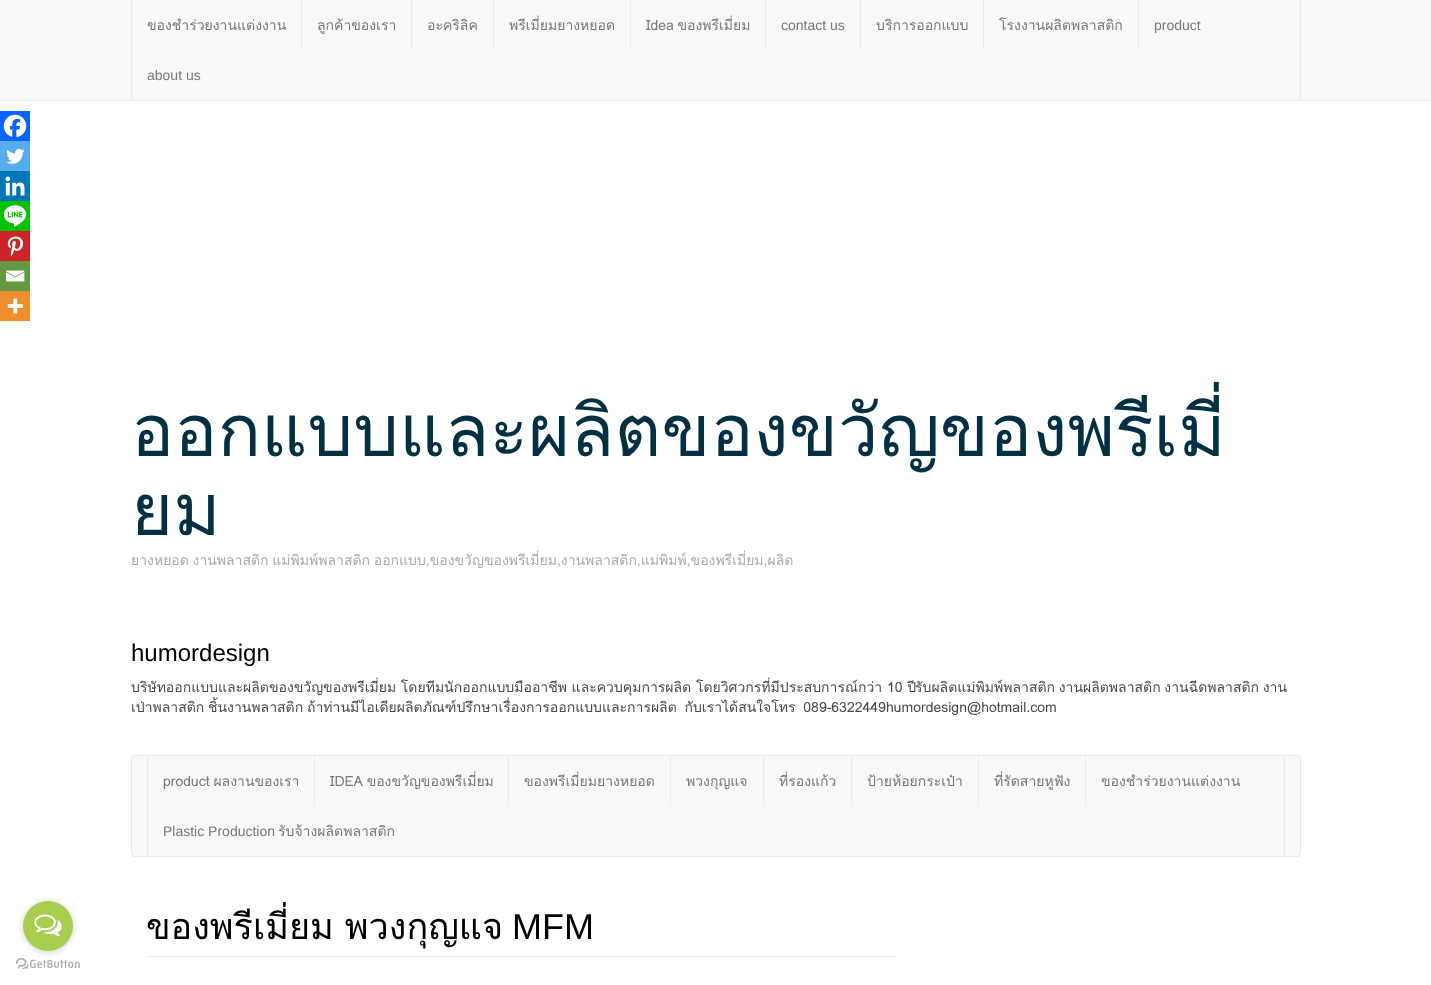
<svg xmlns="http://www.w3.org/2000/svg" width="1431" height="985">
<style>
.a{font:14px Loma;fill:#777}
.b{font:14px Liberation Sans;fill:#777}
.c{font:72px Loma;fill:#003044}
.d{font:14px Loma;fill:#a9a9a9}
.e{font:24px Liberation Sans;fill:#000}
.f{font:14px Loma;fill:#494949}
.g{font:36px Loma;fill:#000}
.h{font:36px Liberation Sans;fill:#000}
</style>
<rect width="100%" height="100%" fill="#fff"/>
<path fill="#f8f8f8" d="M0 0h1431v100H0z"/>
<path fill="#ececec" d="M0 100h1431v1H0z"/>
<path fill="#ececec" d="M1300 0h1v100H1300z"/>
<path fill="#ececec" d="M131 0h1v100H131z"/>
<path fill="#ececec" d="M301 0h1v50H301z"/>
<path fill="#ececec" d="M411 0h1v50H411z"/>
<path fill="#ececec" d="M493 0h1v50H493z"/>
<path fill="#ececec" d="M630 0h1v50H630z"/>
<path fill="#ececec" d="M765 0h1v50H765z"/>
<path fill="#ececec" d="M860 0h1v50H860z"/>
<path fill="#ececec" d="M983 0h1v50H983z"/>
<path fill="#ececec" d="M1138 0h1v50H1138z"/>
<rect fill="#f8f8f8" stroke="#e7e7e7" x="131.5" y="755.5" width="1169" height="101" rx="3.5"/>
<path fill="#ececec" d="M1284 756h1v100H1284z"/>
<path fill="#ececec" d="M147 756h1v100H147z"/>
<path fill="#ececec" d="M314 756h1v50H314z"/>
<path fill="#ececec" d="M508 756h1v50H508z"/>
<path fill="#ececec" d="M670 756h1v50H670z"/>
<path fill="#ececec" d="M763 756h1v50H763z"/>
<path fill="#ececec" d="M851 756h1v50H851z"/>
<path fill="#ececec" d="M978 756h1v50H978z"/>
<path fill="#ececec" d="M1085 756h1v50H1085z"/>
<image href="2.png" x="16" y="958" width="64" height="11"/>
<rect fill="#88888866" filter="blur(3.5px)" x="23" y="902" width="50" height="50" rx="25"/>
<circle fill="#a8ce50" cx="48" cy="926" r="25"/>
<image href="1.png" x="34" y="914" width="28" height="23"/>
<path fill="#0765fe" d="M0 111h30v30H0z"/>
<image href="3.png" x="3" y="114" width="24" height="24"/>
<path fill="#55acee" d="M0 141h30v30H0z"/>
<image href="4.png" x="6" y="148" width="19" height="16"/>
<path fill="#0077b5" d="M0 171h30v30H0z"/>
<image href="5.png" x="5" y="176" width="20" height="20"/>
<path fill="#00c300" d="M0 201h30v30H0z"/>
<image href="6.png" x="3" y="205" width="24" height="22"/>
<path fill="#cc2329" d="M0 231h30v30H0z"/>
<image href="7.png" x="7" y="236" width="17" height="21"/>
<path fill="#649a3f" d="M0 261h30v30H0z"/>
<image href="8.png" x="6" y="270" width="19" height="12"/>
<path fill="#ee8e2d" d="M0 291h30v30H0z"/>
<image href="9.png" x="7" y="298" width="16" height="16"/>
<path fill="#eee" d="M146 956h750v1H146z"/>
<text class="a" x="147" y="30">ของชำร่วยงานแต่งงาน</text>
<text class="a" x="317" y="30">ลูกค้าของเรา</text>
<text class="a" x="427" y="30">อะคริลิค</text>
<text class="a" x="509" y="30">พรีเมี่ยมยางหยอด</text>
<text class="a" x="646" y="30" word-spacing="-1">Idea ของพรีเมี่ยม</text>
<text class="b" x="781" y="30">contact us</text>
<text class="a" x="876" y="30">บริการออกแบบ</text>
<text class="a" x="999" y="30">โรงงานผลิตพลาสติก</text>
<text class="b" x="1154" y="30">product</text>
<text class="b" x="147" y="80">about us</text>
<text class="c" x="131" y="456">ออกแบบและผลิตของขวัญของพรีเมี่</text>
<text class="c" x="131" y="535">ยม</text>
<text class="d" x="131" y="565" word-spacing="-1">ยางหยอด งานพลาสติก แม่พิมพ์พลาสติก ออกแบบ,ของขวัญของพรีเมี่ยม,งานพลาสติก,แม่พิมพ์,ของพรีเมี่ยม,ผลิต</text>
<text class="e" x="131" y="661">humordesign</text>
<text class="f" x="131" y="692">บริษัทออกแบบและผลิตของขวัญของพรีเมี่ยม โดยทีมนักออกแบบมืออาชีพ และควบคุมการผลิต โดยวิศวกรที่มีประสบการณ์กว่า 10 ปี</text>
<text class="f" x="915" y="692" word-spacing="-1">รับผลิตแม่พิมพ์พลาสติก งานผลิตพลาสติก งานฉีดพลาสติก งาน</text>
<text class="f" x="131" y="712">เป่าพลาสติก</text>
<text class="f" x="208" y="712">ชิ้นงานพลาสติก</text>
<text class="f" x="307" y="712" word-spacing="3">ถ้าท่านมีไอเดียผลิตภัณฑ์ปรึกษาเรื่องการออกแบบและการผลิต กับเราได้สนใจโทร 089-6322449</text>
<text class="f" x="886" y="712">humordesign@hotmail.com</text>
<text class="a" x="163" y="786" word-spacing="-1">product ผลงานของเรา</text>
<text class="a" x="330" y="786" word-spacing="-1">IDEA ของขวัญของพรีเมี่ยม</text>
<text class="a" x="524" y="786">ของพรีเมี่ยมยางหยอด</text>
<text class="a" x="686" y="786">พวงกุญแจ</text>
<text class="a" x="779" y="786">ที่รองแก้ว</text>
<text class="a" x="867" y="786">ป้ายห้อยกระเป๋า</text>
<text class="a" x="994" y="786">ที่รัดสายหูฟัง</text>
<text class="a" x="1101" y="786">ของชำร่วยงานแต่งงาน</text>
<text class="b" x="163" y="836">Plastic Production</text>
<text class="a" x="278" y="836">รับจ้างผลิตพลาสติก</text>
<text class="g" x="146" y="939" word-spacing="-1">ของพรีเมี่ยม พวงกุญแจ</text>
<text class="h" x="512" y="939">MFM</text>
</svg>
